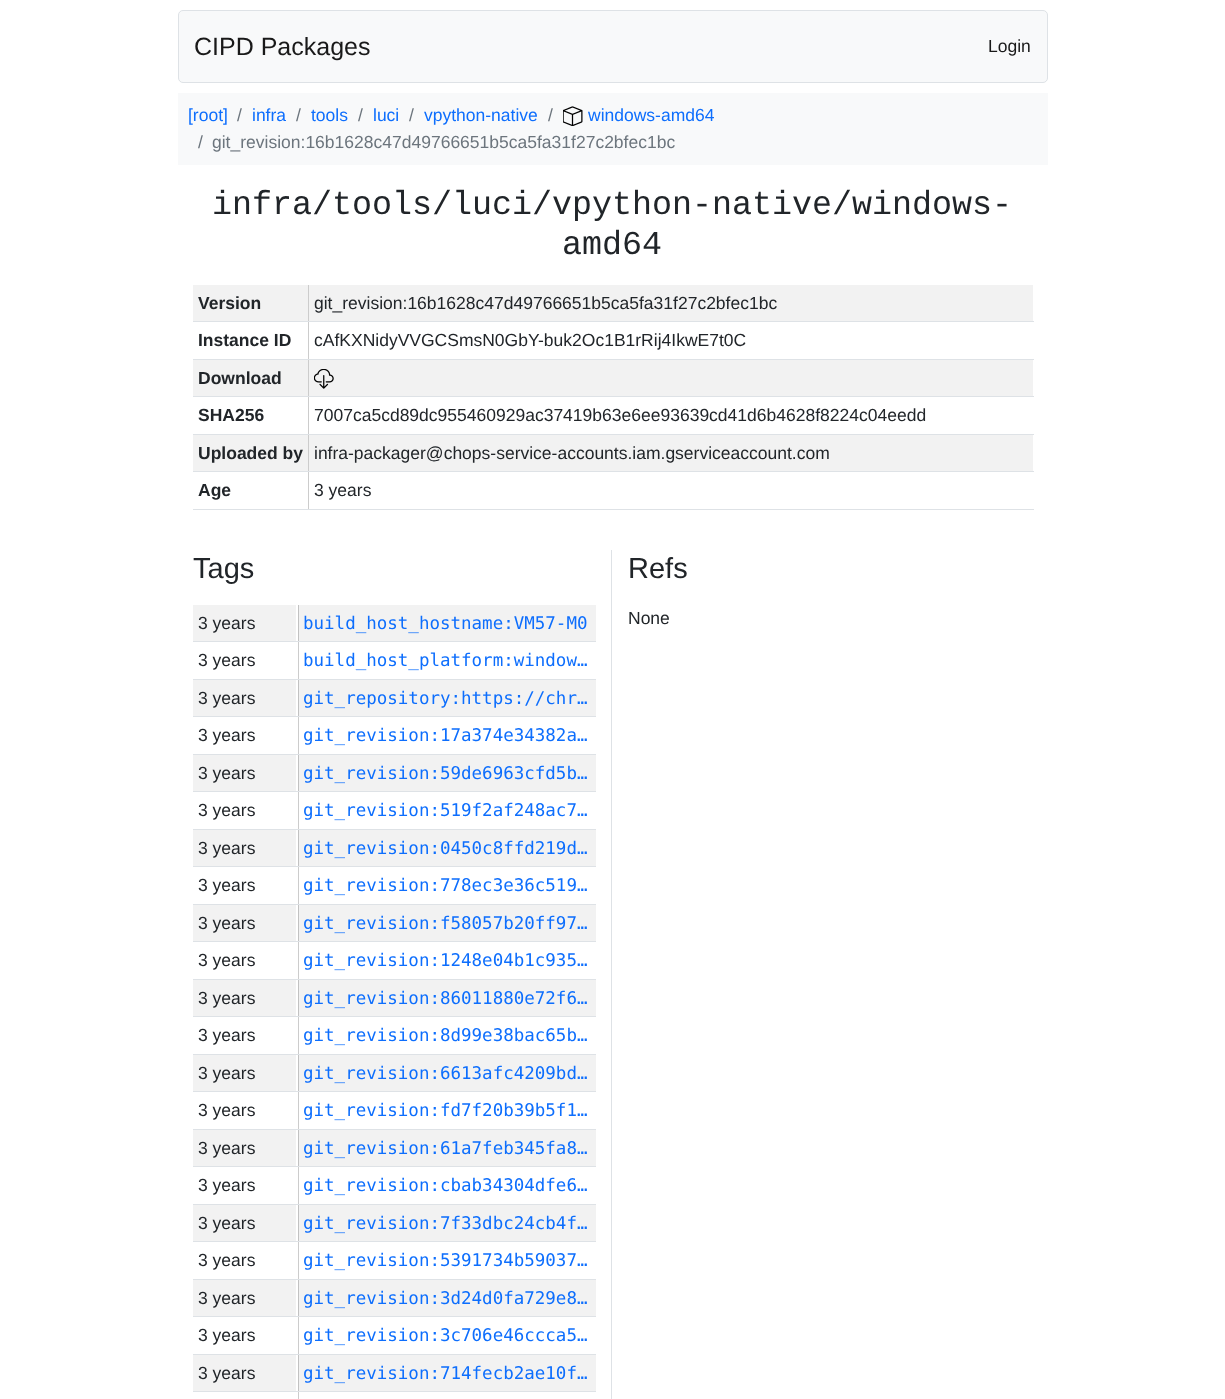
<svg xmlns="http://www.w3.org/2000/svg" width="1225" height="1399">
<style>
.a{font:25px Liberation Sans;fill:#191919}
.b{font:17.5px Liberation Sans;fill:#191919}
.c{font:17.5px Liberation Sans;fill:#0d6efd}
.d{font:17.5px Liberation Sans;fill:#6c757d}
.e{font:33.35px Liberation Mono;fill:#212529}
.f{font:bold 17.5px Liberation Sans;fill:#212529}
.g{font:17.5px Liberation Sans;fill:#212529}
.h{font:29px Liberation Sans;fill:#212529}
.i{font:17.5px DejaVu Sans Mono;fill:#0d6efd}
</style>
<rect width="100%" height="100%" fill="#fff"/>
<path fill="#f2f2f2" d="M299 1355h297v36H299z"/>
<path fill="#f2f2f2" d="M299 1280h297v36H299z"/>
<path fill="#f2f2f2" d="M299 1205h297v36H299z"/>
<path fill="#f2f2f2" d="M299 1130h297v36H299z"/>
<path fill="#f2f2f2" d="M299 1055h297v36H299z"/>
<path fill="#f2f2f2" d="M299 980h297v36H299z"/>
<path fill="#f2f2f2" d="M299 905h297v36H299z"/>
<path fill="#f2f2f2" d="M299 830h297v36H299z"/>
<path fill="#f2f2f2" d="M299 755h297v36H299z"/>
<path fill="#f2f2f2" d="M299 680h297v36H299z"/>
<path fill="#f2f2f2" d="M299 605h297v36H299z"/>
<rect fill="#f8f9fa" stroke="#dee2e6" x="178.5" y="10.5" width="869" height="72" rx="4.5"/>
<path fill="#f8f9fa" d="M178 93h870v72H178z"/>
<image href="1.png" x="563" y="106" width="20" height="20"/>
<path fill="#f2f2f2" d="M193 285h115v36H193z"/>
<path fill="#dee2e6" d="M308 509h726v1H308z"/>
<path fill="#ccc" d="M308 471h1v39H308z"/>
<path fill="#dee2e6" d="M308 471h726v1H308z"/>
<path fill="#ccc" d="M308 434h1v39H308z"/>
<path fill="#dee2e6" d="M308 434h726v1H308z"/>
<path fill="#ccc" d="M308 396h1v39H308z"/>
<path fill="#dee2e6" d="M308 396h726v1H308z"/>
<path fill="#ccc" d="M308 359h1v39H308z"/>
<path fill="#dee2e6" d="M308 359h726v1H308z"/>
<path fill="#ccc" d="M308 321h1v39H308z"/>
<path fill="#dee2e6" d="M308 321h726v1H308z"/>
<path fill="#ccc" d="M308 285h1v38H308z"/>
<path fill="#dee2e6" d="M193 321h116v1H193z"/>
<path fill="#f2f2f2" d="M309 285h724v36H309z"/>
<path fill="#dee2e6" d="M193 359h116v1H193z"/>
<path fill="#f2f2f2" d="M193 360h115v36H193z"/>
<path fill="#dee2e6" d="M193 396h116v1H193z"/>
<path fill="#f2f2f2" d="M309 360h724v36H309z"/>
<image href="2.png" x="314" y="369" width="20" height="20"/>
<path fill="#dee2e6" d="M193 434h116v1H193z"/>
<path fill="#f2f2f2" d="M193 435h115v36H193z"/>
<path fill="#dee2e6" d="M193 471h116v1H193z"/>
<path fill="#f2f2f2" d="M309 435h724v36H309z"/>
<path fill="#dee2e6" d="M193 509h116v1H193z"/>
<path fill="#dee2e6" d="M611 550h1v849H611z"/>
<path fill="#c2c2c2" d="M298 605h1v36H298z"/>
<path fill="#f2f2f2" d="M193 605h103v36H193z"/>
<path fill="#dee2e6" d="M298 679h298v1H298z"/>
<path fill="#ccc" d="M298 641h1v39H298z"/>
<path fill="#dee2e6" d="M193 641h403v1H193z"/>
<path fill="#dee2e6" d="M193 679h106v1H193z"/>
<path fill="#c2c2c2" d="M298 680h1v36H298z"/>
<path fill="#f2f2f2" d="M193 680h103v36H193z"/>
<path fill="#dee2e6" d="M298 754h298v1H298z"/>
<path fill="#ccc" d="M298 716h1v39H298z"/>
<path fill="#dee2e6" d="M193 716h403v1H193z"/>
<path fill="#dee2e6" d="M193 754h106v1H193z"/>
<path fill="#c2c2c2" d="M298 755h1v36H298z"/>
<path fill="#f2f2f2" d="M193 755h103v36H193z"/>
<path fill="#dee2e6" d="M298 829h298v1H298z"/>
<path fill="#ccc" d="M298 791h1v39H298z"/>
<path fill="#dee2e6" d="M193 791h403v1H193z"/>
<path fill="#dee2e6" d="M193 829h106v1H193z"/>
<path fill="#c2c2c2" d="M298 830h1v36H298z"/>
<path fill="#f2f2f2" d="M193 830h103v36H193z"/>
<path fill="#dee2e6" d="M298 904h298v1H298z"/>
<path fill="#ccc" d="M298 866h1v39H298z"/>
<path fill="#dee2e6" d="M193 866h403v1H193z"/>
<path fill="#dee2e6" d="M193 904h106v1H193z"/>
<path fill="#c2c2c2" d="M298 905h1v36H298z"/>
<path fill="#f2f2f2" d="M193 905h103v36H193z"/>
<path fill="#dee2e6" d="M298 979h298v1H298z"/>
<path fill="#ccc" d="M298 941h1v39H298z"/>
<path fill="#dee2e6" d="M193 941h403v1H193z"/>
<path fill="#dee2e6" d="M193 979h106v1H193z"/>
<path fill="#c2c2c2" d="M298 980h1v36H298z"/>
<path fill="#f2f2f2" d="M193 980h103v36H193z"/>
<path fill="#dee2e6" d="M298 1054h298v1H298z"/>
<path fill="#ccc" d="M298 1016h1v39H298z"/>
<path fill="#dee2e6" d="M193 1016h403v1H193z"/>
<path fill="#dee2e6" d="M193 1054h106v1H193z"/>
<path fill="#c2c2c2" d="M298 1055h1v36H298z"/>
<path fill="#f2f2f2" d="M193 1055h103v36H193z"/>
<path fill="#dee2e6" d="M298 1129h298v1H298z"/>
<path fill="#ccc" d="M298 1091h1v39H298z"/>
<path fill="#dee2e6" d="M193 1091h403v1H193z"/>
<path fill="#dee2e6" d="M193 1129h106v1H193z"/>
<path fill="#c2c2c2" d="M298 1130h1v36H298z"/>
<path fill="#f2f2f2" d="M193 1130h103v36H193z"/>
<path fill="#dee2e6" d="M298 1204h298v1H298z"/>
<path fill="#ccc" d="M298 1166h1v39H298z"/>
<path fill="#dee2e6" d="M193 1166h403v1H193z"/>
<path fill="#dee2e6" d="M193 1204h106v1H193z"/>
<path fill="#c2c2c2" d="M298 1205h1v36H298z"/>
<path fill="#f2f2f2" d="M193 1205h103v36H193z"/>
<path fill="#dee2e6" d="M298 1279h298v1H298z"/>
<path fill="#ccc" d="M298 1241h1v39H298z"/>
<path fill="#dee2e6" d="M193 1241h403v1H193z"/>
<path fill="#dee2e6" d="M193 1279h106v1H193z"/>
<path fill="#c2c2c2" d="M298 1280h1v36H298z"/>
<path fill="#f2f2f2" d="M193 1280h103v36H193z"/>
<path fill="#dee2e6" d="M298 1354h298v1H298z"/>
<path fill="#ccc" d="M298 1316h1v39H298z"/>
<path fill="#dee2e6" d="M193 1316h403v1H193z"/>
<path fill="#dee2e6" d="M193 1354h106v1H193z"/>
<path fill="#c2c2c2" d="M298 1355h1v36H298z"/>
<path fill="#f2f2f2" d="M193 1355h103v36H193z"/>
<path fill="#ccc" d="M298 1391h1v8H298z"/>
<path fill="#dee2e6" d="M193 1391h403v1H193z"/>
<text class="a" x="194" y="55">CIPD Packages</text>
<text class="b" x="988" y="52">Login</text>
<text class="c" x="188" y="121">[root]</text>
<text class="d" x="237" y="121">/</text>
<text class="c" x="252" y="121">infra</text>
<text class="d" x="296" y="121">/</text>
<text class="c" x="311" y="121">tools</text>
<text class="d" x="358" y="121">/</text>
<text class="c" x="373" y="121">luci</text>
<text class="d" x="409" y="121">/</text>
<text class="c" x="424" y="121">vpython-native</text>
<text class="d" x="548" y="121">/</text>
<text class="c" x="588" y="121">windows-amd64</text>
<text class="d" x="198" y="148">/</text>
<text class="d" x="212" y="148">git_revision:16b1628c47d49766651b5ca5fa31f27c2bfec1bc</text>
<text class="e" x="212" y="214">infra/tools/luci/vpython-native/windows-</text>
<text class="e" x="562" y="254">amd64</text>
<text class="f" x="198" y="309">Version</text>
<text class="g" x="314" y="309">git_revision:16b1628c47d49766651b5ca5fa31f27c2bfec1bc</text>
<text class="f" x="198" y="346">Instance ID</text>
<text class="g" x="314" y="346">cAfKXNidyVVGCSmsN0GbY-buk2Oc1B1rRij4IkwE7t0C</text>
<text class="f" x="198" y="384">Download</text>
<text class="f" x="198" y="421">SHA256</text>
<text class="g" x="314" y="421">7007ca5cd89dc955460929ac37419b63e6ee93639cd41d6b4628f8224c04eedd</text>
<text class="f" x="198" y="459">Uploaded by</text>
<text class="g" x="314" y="459">infra-packager@chops-service-accounts.iam.gserviceaccount.com</text>
<text class="f" x="198" y="496">Age</text>
<text class="g" x="314" y="496">3 years</text>
<text class="h" x="193" y="578">Tags</text>
<text class="g" x="198" y="629">3 years</text>
<text class="i" x="303" y="629">build_host_hostname:VM57-M0</text>
<text class="g" x="198" y="666">3 years</text>
<text class="i" x="303" y="666">build_host_platform:window…</text>
<text class="g" x="198" y="704">3 years</text>
<text class="i" x="303" y="704">git_repository:https://chr…</text>
<text class="g" x="198" y="741">3 years</text>
<text class="i" x="303" y="741">git_revision:17a374e34382a…</text>
<text class="g" x="198" y="779">3 years</text>
<text class="i" x="303" y="779">git_revision:59de6963cfd5b…</text>
<text class="g" x="198" y="816">3 years</text>
<text class="i" x="303" y="816">git_revision:519f2af248ac7…</text>
<text class="g" x="198" y="854">3 years</text>
<text class="i" x="303" y="854">git_revision:0450c8ffd219d…</text>
<text class="g" x="198" y="891">3 years</text>
<text class="i" x="303" y="891">git_revision:778ec3e36c519…</text>
<text class="g" x="198" y="929">3 years</text>
<text class="i" x="303" y="929">git_revision:f58057b20ff97…</text>
<text class="g" x="198" y="966">3 years</text>
<text class="i" x="303" y="966">git_revision:1248e04b1c935…</text>
<text class="g" x="198" y="1004">3 years</text>
<text class="i" x="303" y="1004">git_revision:86011880e72f6…</text>
<text class="g" x="198" y="1041">3 years</text>
<text class="i" x="303" y="1041">git_revision:8d99e38bac65b…</text>
<text class="g" x="198" y="1079">3 years</text>
<text class="i" x="303" y="1079">git_revision:6613afc4209bd…</text>
<text class="g" x="198" y="1116">3 years</text>
<text class="i" x="303" y="1116">git_revision:fd7f20b39b5f1…</text>
<text class="g" x="198" y="1154">3 years</text>
<text class="i" x="303" y="1154">git_revision:61a7feb345fa8…</text>
<text class="g" x="198" y="1191">3 years</text>
<text class="i" x="303" y="1191">git_revision:cbab34304dfe6…</text>
<text class="g" x="198" y="1229">3 years</text>
<text class="i" x="303" y="1229">git_revision:7f33dbc24cb4f…</text>
<text class="g" x="198" y="1266">3 years</text>
<text class="i" x="303" y="1266">git_revision:5391734b59037…</text>
<text class="g" x="198" y="1304">3 years</text>
<text class="i" x="303" y="1304">git_revision:3d24d0fa729e8…</text>
<text class="g" x="198" y="1341">3 years</text>
<text class="i" x="303" y="1341">git_revision:3c706e46ccca5…</text>
<text class="g" x="198" y="1379">3 years</text>
<text class="i" x="303" y="1379">git_revision:714fecb2ae10f…</text>
<text class="h" x="628" y="578">Refs</text>
<text class="g" x="628" y="624">None</text>
</svg>
